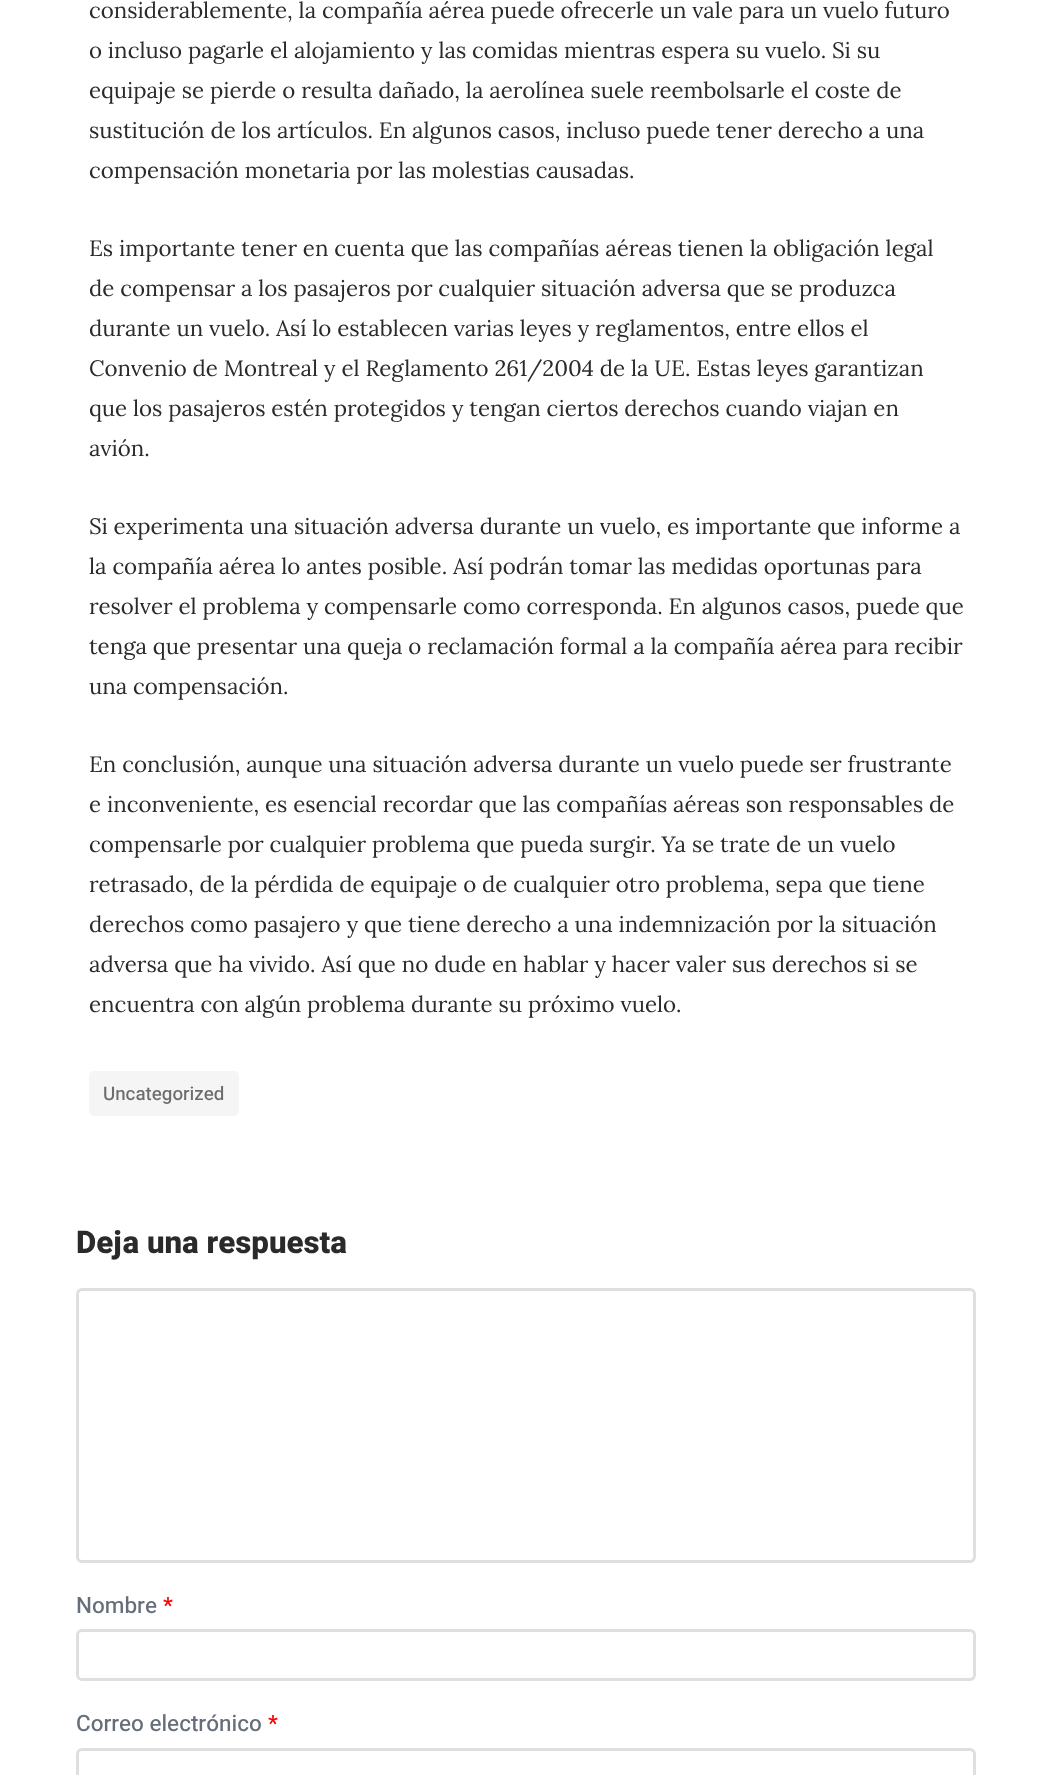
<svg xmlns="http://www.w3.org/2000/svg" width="1052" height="1775">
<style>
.a{font:22.25px Lora;fill:#2a2a2a}
.b{font:500 18.75px Heebo;fill:#6d6c6c}
.c{font:800 31.25px Heebo;fill:#2a2a2a}
.d{font:500 22.5px Heebo;fill:#656e79}
.e{font:500 22.5px Heebo;fill:#f00}
</style>
<rect width="100%" height="100%" fill="#fff"/>
<rect fill="#f5f5f5" x="89" y="1071" width="150" height="45" rx="5"/>
<rect fill="none" stroke="#dfdfdf" stroke-width="3" x="77.5" y="1289.5" width="897" height="272" rx="4.5"/>
<rect fill="none" stroke="#dfdfdf" stroke-width="3" x="77.5" y="1630.5" width="897" height="49" rx="4.5"/>
<rect fill="none" stroke="#dfdfdf" stroke-width="3" x="77.5" y="1749.5" width="897" height="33" rx="4.5"/>
<text class="a" x="89" y="18">considerablemente, la compañía aérea puede ofrecerle un vale para un vuelo futuro</text>
<text class="a" x="89" y="58">o incluso pagarle el alojamiento y las comidas mientras espera su vuelo. Si su</text>
<text class="a" x="89" y="98">equipaje se pierde o resulta dañado, la aerolínea suele reembolsarle el coste de</text>
<text class="a" x="89" y="138">sustitución de los artículos. En algunos casos, incluso puede tener derecho a una</text>
<text class="a" x="89" y="178">compensación monetaria por las molestias causadas.</text>
<text class="a" x="89" y="256">Es importante tener en cuenta que las compañías aéreas tienen la obligación legal</text>
<text class="a" x="89" y="296">de compensar a los pasajeros por cualquier situación adversa que se produzca</text>
<text class="a" x="89" y="336">durante un vuelo. Así lo establecen varias leyes y reglamentos, entre ellos el</text>
<text class="a" x="89" y="376">Convenio de Montreal y el Reglamento 261/2004 de la UE. Estas leyes garantizan</text>
<text class="a" x="89" y="416">que los pasajeros estén protegidos y tengan ciertos derechos cuando viajan en</text>
<text class="a" x="89" y="456">avión.</text>
<text class="a" x="89" y="534">Si experimenta una situación adversa durante un vuelo, es importante que informe a</text>
<text class="a" x="89" y="574">la compañía aérea lo antes posible. Así podrán tomar las medidas oportunas para</text>
<text class="a" x="89" y="614">resolver el problema y compensarle como corresponda. En algunos casos, puede que</text>
<text class="a" x="89" y="654">tenga que presentar una queja o reclamación formal a la compañía aérea para recibir</text>
<text class="a" x="89" y="694">una compensación.</text>
<text class="a" x="89" y="772">En conclusión, aunque una situación adversa durante un vuelo puede ser frustrante</text>
<text class="a" x="89" y="812">e inconveniente, es esencial recordar que las compañías aéreas son responsables de</text>
<text class="a" x="89" y="852">compensarle por cualquier problema que pueda surgir. Ya se trate de un vuelo</text>
<text class="a" x="89" y="892">retrasado, de la pérdida de equipaje o de cualquier otro problema, sepa que tiene</text>
<text class="a" x="89" y="932">derechos como pasajero y que tiene derecho a una indemnización por la situación</text>
<text class="a" x="89" y="972">adversa que ha vivido. Así que no dude en hablar y hacer valer sus derechos si se</text>
<text class="a" x="89" y="1012">encuentra con algún problema durante su próximo vuelo.</text>
<text class="b" x="103" y="1100">Uncategorized</text>
<text class="c" x="76" y="1253">Deja una respuesta</text>
<text class="d" x="76" y="1613">Nombre</text>
<text class="e" x="163" y="1613">*</text>
<text class="d" x="76" y="1731">Correo electrónico</text>
<text class="e" x="268" y="1731">*</text>
</svg>
